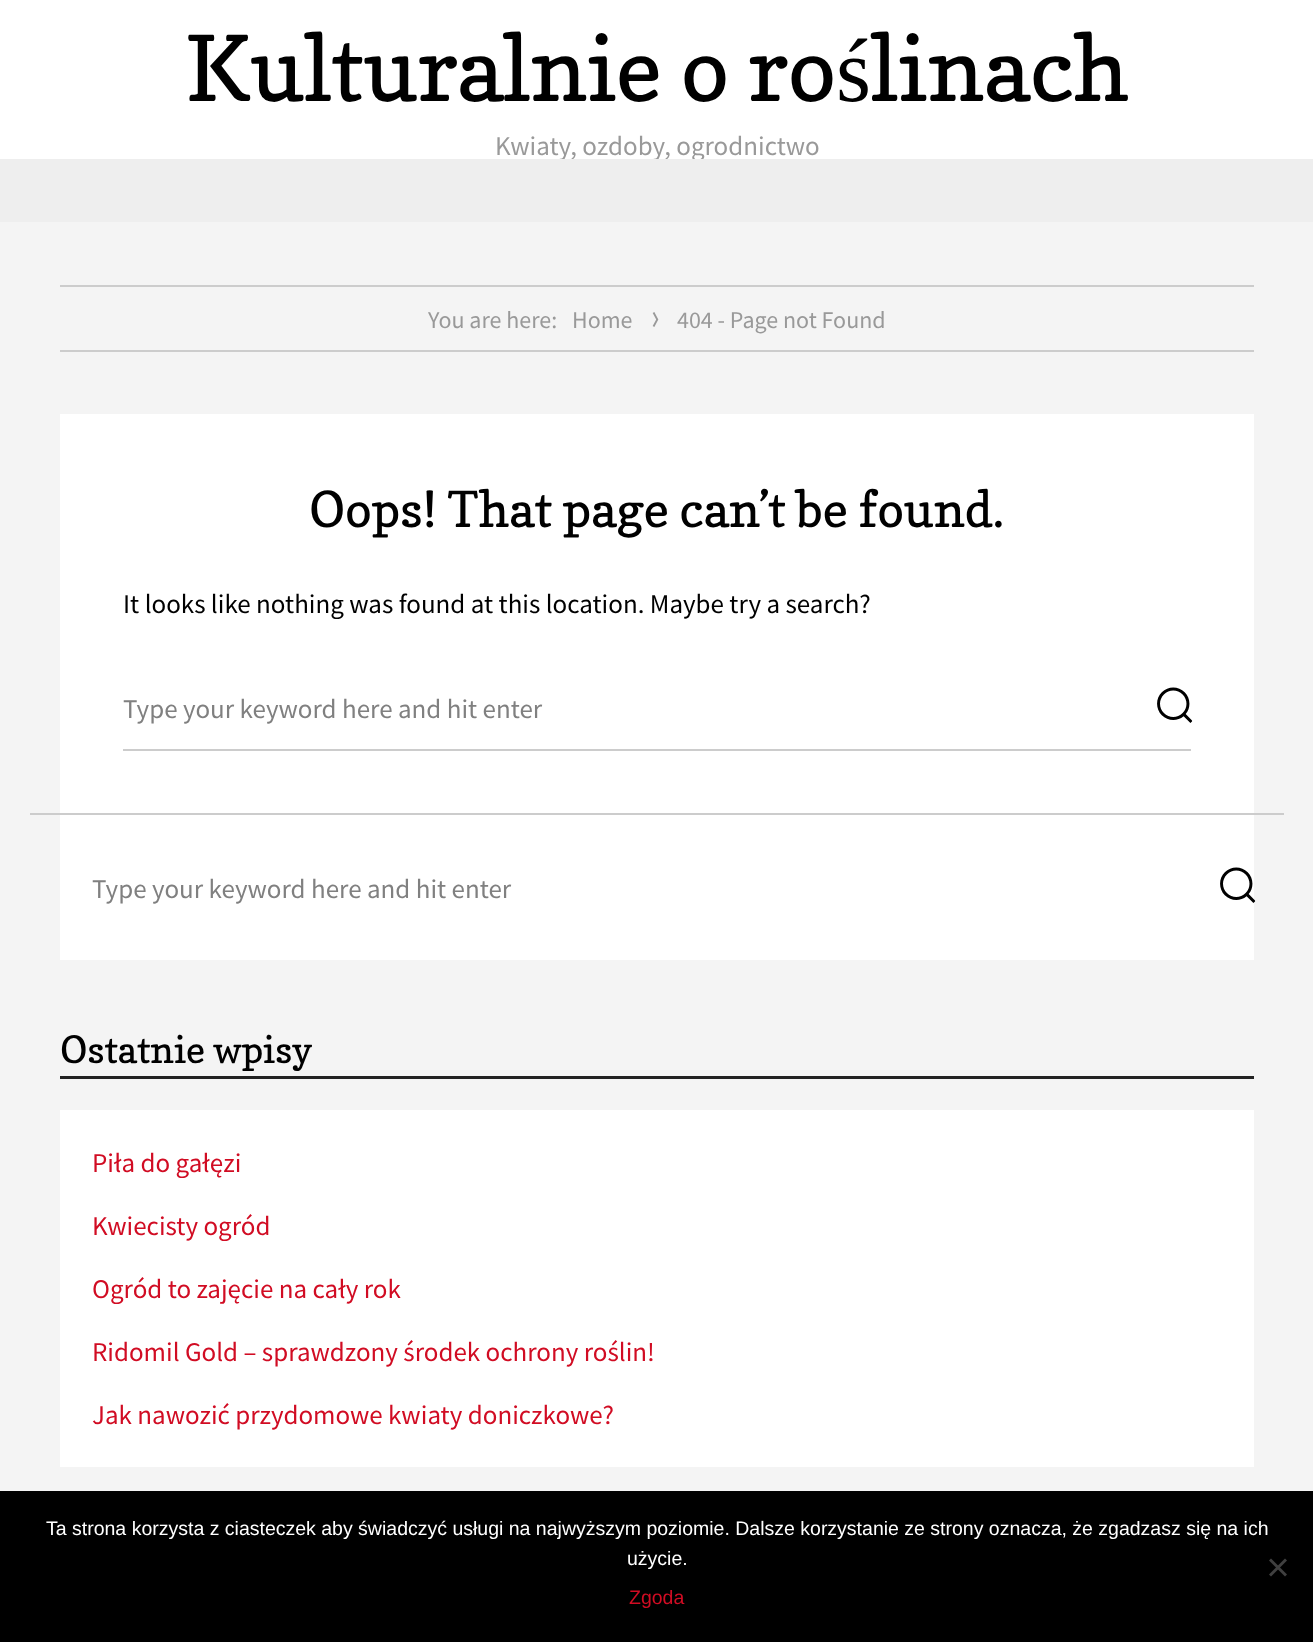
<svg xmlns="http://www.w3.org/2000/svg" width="1313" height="1642">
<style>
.a{font:90px Copse;fill:#000}
.b{font:90px Liberation Serif;fill:#000}
.c{font:27px Source Sans Pro;fill:#999}
.d{font:24px Source Sans Pro;fill:#999}
.e{font:49.5px Copse;fill:#000}
.f{font:27px Source Sans Pro;fill:#000}
.g{font:27px Source Sans Pro;fill:#808080}
.h{font:37.5px Copse;fill:#000}
.i{font:27px Source Sans Pro;fill:#d10c23}
.j{font:19.5px Liberation Sans;fill:#fff}
.k{font:19.5px Liberation Sans;fill:#d10c23}
</style>
<defs>
<clipPath id="clip1"><path d="M0 15h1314v144H0z"/></clipPath>
</defs>
<rect width="100%" height="100%" fill="#eee"/>
<path fill="#fff" d="M0 0h1313v159H0z"/>
<path fill="#f4f4f4" d="M0 222h1313v1269H0z"/>
<path fill="#ccc" d="M60 285h1194v2H60z"/>
<path fill="#ccc" d="M60 350h1194v2H60z"/>
<image href="1.png" x="652" y="312" width="7" height="15"/>
<path fill="#fff" d="M60 414h1194v399H60z"/>
<path fill="#ccc" d="M123 749h1068v2H123z"/>
<image href="2.png" x="1157" y="687" width="36" height="36"/>
<path fill="#ccc" d="M30 813h1254v2H30z"/>
<path fill="#fff" d="M60 815h1194v145H60z"/>
<image href="3.png" x="1220" y="867" width="36" height="36"/>
<path fill="#222" d="M60 1076h1194v3H60z"/>
<path fill="#fff" d="M60 1110h1194v357H60z"/>
<path fill="#000" d="M0 1491h1313v151H0z"/>
<path fill="#404040" d="M1285 1558.5l2 2l-16 16l-2-2z"/>
<path fill="#404040" d="M1269 1560.5l2-2l16 16l-2 2z"/>
<text class="a" x="185" y="101">Kulturalnie o ro</text>
<text class="b" x="836" y="101">ś</text>
<text class="a" x="871" y="101">linach</text>
<g clip-path="url(#clip1)">
<text class="c" x="495" y="155">Kwiaty, ozdoby, ogrodnictwo</text>
</g>
<text class="d" x="428" y="328">You are here:</text>
<text class="d" x="572" y="328">Home</text>
<text class="d" x="677" y="328">404 - Page not Found</text>
<text class="e" x="309" y="527">Oops! That page can’t be found.</text>
<text class="f" x="123" y="613">It looks like nothing was found at this location. Maybe try a search?</text>
<text class="g" x="123" y="718">Type your keyword here and hit enter</text>
<text class="g" x="92" y="898">Type your keyword here and hit enter</text>
<text class="h" x="60" y="1063">Ostatnie wpisy</text>
<text class="i" x="92" y="1172">Piła do gałęzi</text>
<text class="i" x="92" y="1235">Kwiecisty ogród</text>
<text class="i" x="92" y="1298">Ogród to zajęcie na cały rok</text>
<text class="i" x="92" y="1361">Ridomil Gold – sprawdzony środek ochrony roślin!</text>
<text class="i" x="92" y="1424">Jak nawozić przydomowe kwiaty doniczkowe?</text>
<text class="j" x="46" y="1535">Ta strona korzysta z ciasteczek aby świadczyć usługi na najwyższym poziomie. Dalsze korzystanie ze strony oznacza, że zgadzasz się na ich</text>
<text class="j" x="627" y="1565">użycie.</text>
<text class="k" x="629" y="1604">Zgoda</text>
</svg>
